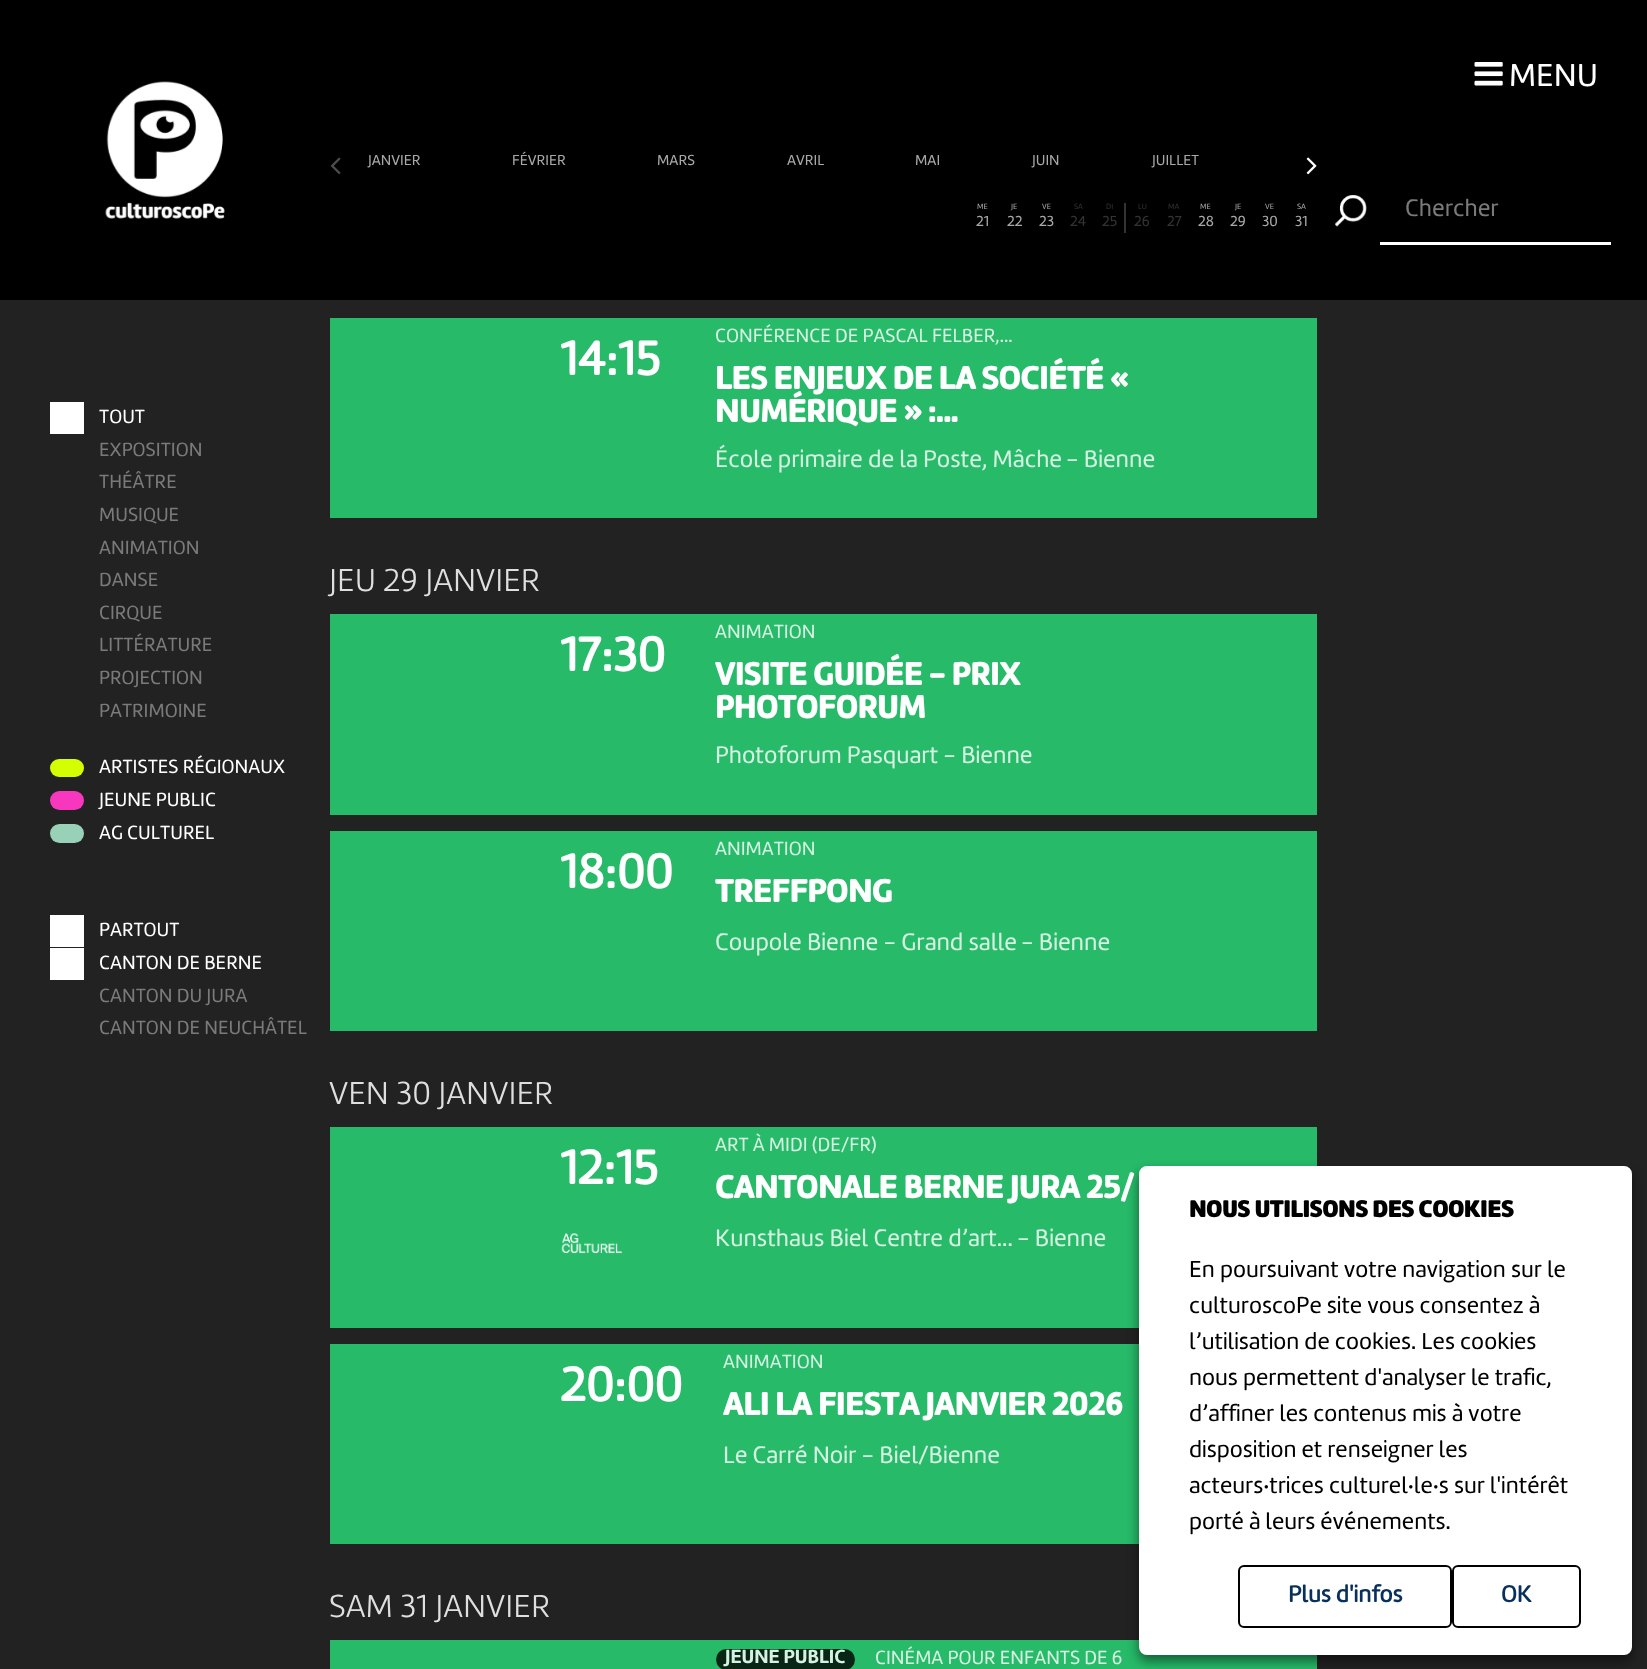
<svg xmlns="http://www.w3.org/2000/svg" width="1647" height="1669">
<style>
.a{font:33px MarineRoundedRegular;fill:#fff}
.b{font:15px MarineRoundedRegular;fill:#a8a8a8}
.c{font:8px MarineRoundedRegular;fill:#a8a8a8}
.d{font:8px MarineRoundedRegular;fill:#333}
.e{font:15px MarineRoundedRegular;fill:#333}
.f{font:19.75px MarineRoundedRegular;fill:#fff}
.g{font:19.75px MarineRoundedRegular;fill:#7a7a7a}
.h{font:bold 49.5px MarineRoundedRegular;fill:#fff}
.i{font:19.75px MarineRoundedRegular;fill:#d4f1e1}
.j{font:bold 33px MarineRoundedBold;fill:#fff}
.k{font:24.75px MarineRoundedRegular;fill:#d4f1e1}
.l{font:33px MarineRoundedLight;fill:#dfdfdf}
.m{font:19.75px MarineRoundedBold;fill:#d4f1e1}
.n{font:24.75px MarineRoundedRegular;fill:#7a7a7a}
.o{font:bold 24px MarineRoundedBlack;fill:#000}
.p{font:24px MarineRoundedRegular;fill:#000}
.q{font:bold 24px MarineRoundedRegular;fill:#07305c}
</style>
<rect width="100%" height="100%" fill="#222"/>
<path fill="#000" d="M0 0h1647v300H0z"/>
<image href="1.png" x="1474" y="62" width="29" height="24"/>
<image href="2.png" x="105" y="81" width="120" height="138"/>
<image href="3.png" x="330" y="157" width="11" height="17"/>
<image href="4.png" x="1306" y="157" width="11" height="18"/>
<path fill="#333" d="M1124 203h2v30H1124z"/>
<path fill="#fff" d="M50 402h34v32H50z"/>
<rect fill="#d3ff01" x="50" y="759" width="34" height="18" rx="9"/>
<rect fill="#f738be" x="50" y="791" width="34" height="19" rx="9.5"/>
<rect fill="#99d1b8" x="50" y="824" width="34" height="19" rx="9.5"/>
<path fill="#fff" d="M50 915h34v32H50z"/>
<path fill="#fff" d="M50 948h34v32H50z"/>
<path fill="#26ba69" d="M330 318h987v200H330z"/>
<path fill="#26ba69" d="M330 614h987v201H330z"/>
<path fill="#26ba69" d="M330 831h987v200H330z"/>
<path fill="#26ba69" d="M330 1127h987v201H330z"/>
<image href="5.png" x="561" y="1233" width="62" height="21"/>
<path fill="#26ba69" d="M330 1344h809v200H330z"/>
<path fill="#26ba69" d="M330 1640h987v29H330z"/>
<rect fill="#082515" x="716" y="1649" width="139" height="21" rx="10.5"/>
<image href="6.png" x="1334" y="195" width="33" height="32"/>
<path fill="#fff" d="M1380 242h231v3H1380z"/>
<rect fill="#00000080" filter="blur(6px)" x="1139" y="1172" width="493" height="489" rx="8"/>
<rect fill="#fff" stroke="#fff" stroke-width="3" x="1140.5" y="1167.5" width="490" height="486" rx="6.5"/>
<rect fill="none" stroke="#000" stroke-width="2" x="1239" y="1566" width="212" height="61" rx="5"/>
<rect fill="none" stroke="#000" stroke-width="2" x="1453" y="1566" width="127" height="61" rx="5"/>
<text class="a" x="1509" y="86">MENU</text>
<text class="b" x="368" y="165">JANVIER</text>
<text class="b" x="512" y="165">FÉVRIER</text>
<text class="b" x="657" y="165">MARS</text>
<text class="b" x="787" y="165">AVRIL</text>
<text class="b" x="915" y="165">MAI</text>
<text class="b" x="1032" y="165">JUIN</text>
<text class="b" x="1152" y="165">JUILLET</text>
<text class="c" x="977" y="209">ME</text>
<text class="b" x="976" y="226">21</text>
<text class="c" x="1011" y="209">JE</text>
<text class="b" x="1007" y="226">22</text>
<text class="c" x="1042" y="209">VE</text>
<text class="b" x="1039" y="226">23</text>
<text class="d" x="1074" y="209">SA</text>
<text class="e" x="1070" y="226">24</text>
<text class="d" x="1106" y="209">DI</text>
<text class="e" x="1102" y="226">25</text>
<text class="d" x="1138" y="209">LU</text>
<text class="e" x="1134" y="226">26</text>
<text class="d" x="1168" y="209">MA</text>
<text class="e" x="1167" y="226">27</text>
<text class="c" x="1200" y="209">ME</text>
<text class="b" x="1198" y="226">28</text>
<text class="c" x="1235" y="209">JE</text>
<text class="b" x="1230" y="226">29</text>
<text class="c" x="1265" y="209">VE</text>
<text class="b" x="1262" y="226">30</text>
<text class="c" x="1297" y="209">SA</text>
<text class="b" x="1295" y="226">31</text>
<text class="f" x="99" y="423">TOUT</text>
<text class="g" x="99" y="456">EXPOSITION</text>
<text class="g" x="99" y="488">THÉÂTRE</text>
<text class="g" x="99" y="521">MUSIQUE</text>
<text class="g" x="99" y="554">ANIMATION</text>
<text class="g" x="99" y="586">DANSE</text>
<text class="g" x="99" y="619">CIRQUE</text>
<text class="g" x="99" y="651">LITTÉRATURE</text>
<text class="g" x="99" y="684">PROJECTION</text>
<text class="g" x="99" y="717">PATRIMOINE</text>
<text class="f" x="99" y="773">ARTISTES RÉGIONAUX</text>
<text class="f" x="99" y="806">JEUNE PUBLIC</text>
<text class="f" x="99" y="839">AG CULTUREL</text>
<text class="f" x="99" y="936">PARTOUT</text>
<text class="f" x="99" y="969">CANTON DE BERNE</text>
<text class="g" x="99" y="1002">CANTON DU JURA</text>
<text class="g" x="99" y="1034">CANTON DE NEUCHÂTEL</text>
<text class="h" x="560" y="375">14:15</text>
<text class="i" x="715" y="342">CONFÉRENCE DE PASCAL FELBER,...</text>
<text class="j" x="715" y="389">LES ENJEUX DE LA SOCIÉTÉ «</text>
<text class="j" x="715" y="422">NUMÉRIQUE » :...</text>
<text class="k" x="715" y="467">École primaire de la Poste, Mâche</text>
<text class="k" x="1066" y="467">- Bienne</text>
<text class="l" x="329" y="591">JEU 29 JANVIER</text>
<text class="h" x="560" y="671">17:30</text>
<text class="i" x="715" y="638">ANIMATION</text>
<text class="j" x="715" y="685">VISITE GUIDÉE - PRIX</text>
<text class="j" x="715" y="718">PHOTOFORUM</text>
<text class="k" x="715" y="763">Photoforum Pasquart - Bienne</text>
<text class="h" x="560" y="888">18:00</text>
<text class="i" x="715" y="855">ANIMATION</text>
<text class="j" x="715" y="902">TREFFPONG</text>
<text class="k" x="715" y="950">Coupole Bienne - Grand salle</text>
<text class="k" x="1021" y="950">- Bienne</text>
<text class="l" x="329" y="1104">VEN 30 JANVIER</text>
<text class="h" x="560" y="1184">12:15</text>
<text class="i" x="715" y="1151">ART À MIDI (DE/FR)</text>
<text class="j" x="715" y="1198">CANTONALE BERNE JURA 25/</text>
<text class="k" x="715" y="1246">Kunsthaus Biel Centre d’art...</text>
<text class="k" x="1017" y="1246">- Bienne</text>
<text class="h" x="560" y="1401">20:00</text>
<text class="i" x="723" y="1368">ANIMATION</text>
<text class="j" x="723" y="1415">ALI LA FIESTA JANVIER 2026</text>
<text class="k" x="723" y="1463">Le Carré Noir - Biel/Bienne</text>
<text class="l" x="329" y="1617">SAM 31 JANVIER</text>
<text class="m" x="725" y="1663">JEUNE PUBLIC</text>
<text class="i" x="875" y="1664">CINÉMA POUR ENFANTS DE 6</text>
<text class="n" x="1405" y="216">Chercher</text>
<text class="o" x="1189" y="1217">NOUS UTILISONS DES COOKIES</text>
<text class="p" x="1189" y="1277">En poursuivant votre navigation sur le</text>
<text class="p" x="1189" y="1313">culturoscoPe site vous consentez à</text>
<text class="p" x="1189" y="1349">l’utilisation de cookies. Les cookies</text>
<text class="p" x="1189" y="1385">nous permettent d'analyser le trafic,</text>
<text class="p" x="1189" y="1421">d’affiner les contenus mis à votre</text>
<text class="p" x="1189" y="1457">disposition et renseigner les</text>
<text class="p" x="1189" y="1493">acteurs·trices culturel·le·s sur l'intérêt</text>
<text class="p" x="1189" y="1529">porté à leurs événements.</text>
<text class="q" x="1288" y="1602">Plus d'infos</text>
<text class="q" x="1501" y="1602">OK</text>
</svg>
